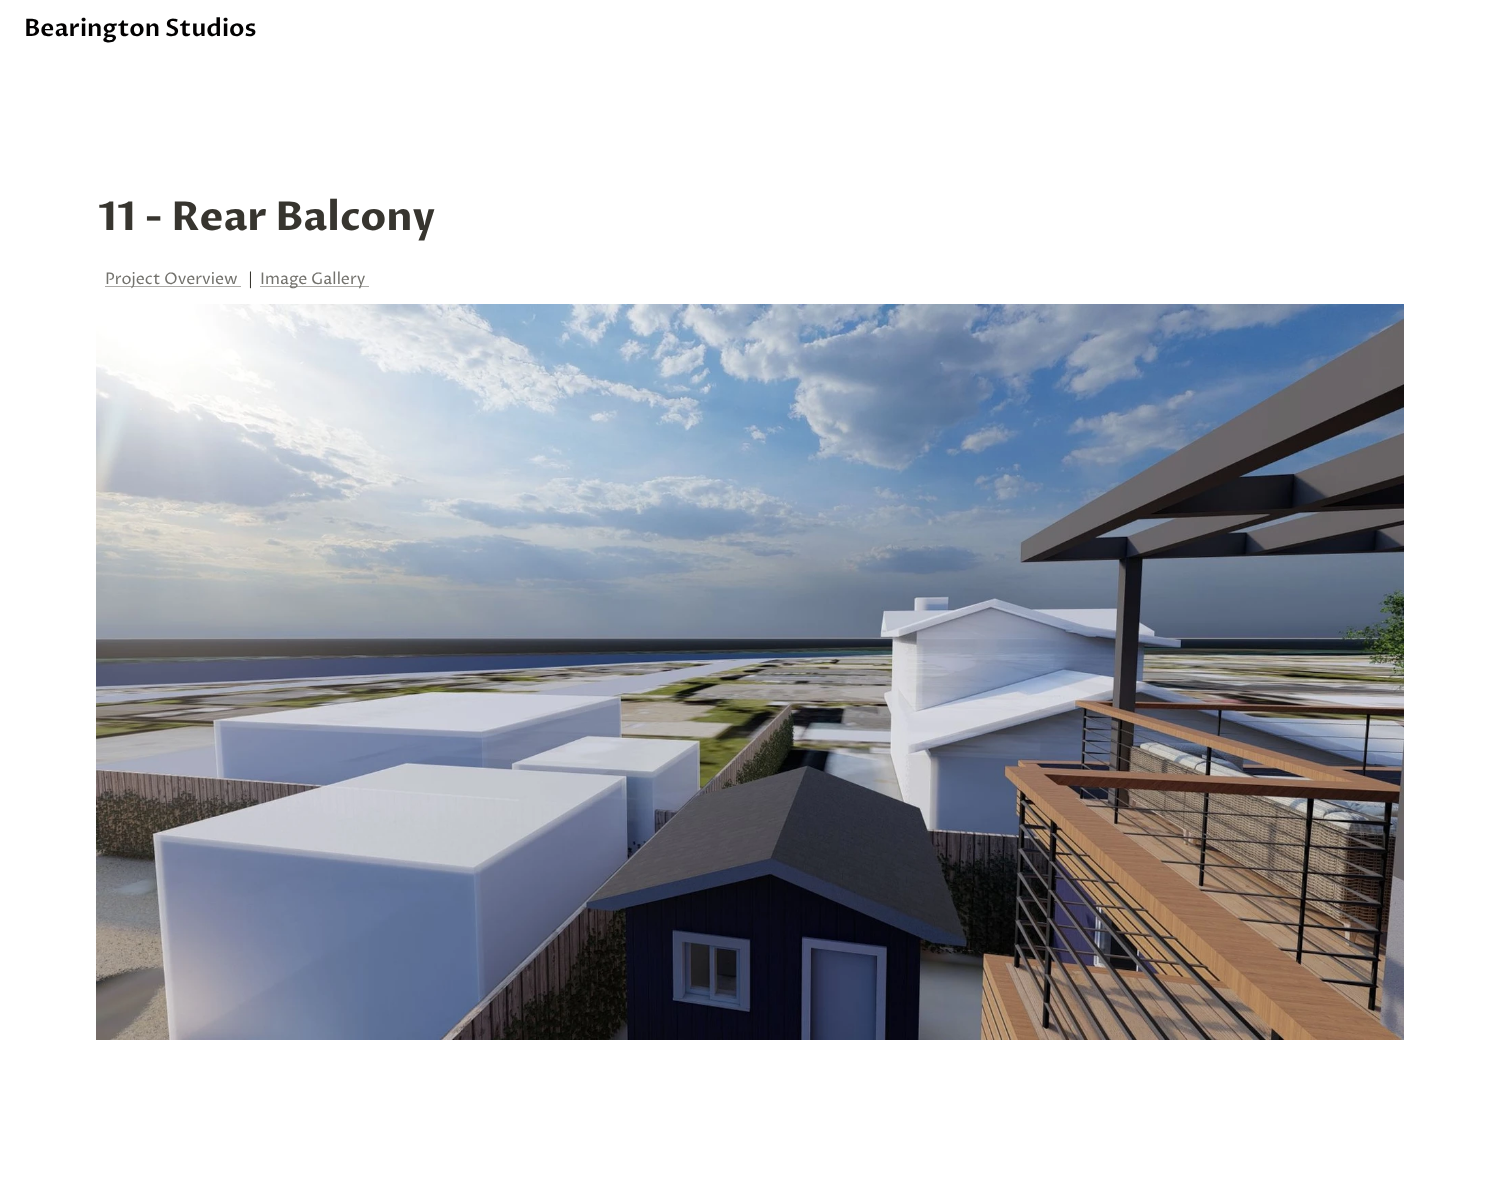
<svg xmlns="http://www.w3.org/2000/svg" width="1500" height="1194">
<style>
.a{font:600 24px Proza Libre;fill:#020101}
.b{font:bold 40px Proza Libre;fill:#37352f}
.c{font:16px Proza Libre;fill:#73726d}
.d{font:16px Proza Libre;fill:#37352f}
</style>
<rect width="100%" height="100%" fill="#fff"/>
<path fill="#abaaa7" d="M105 286h136v1H105z"/>
<path fill="#abaaa7" d="M260 286h109v1H260z"/>
<image href="1.png" x="96" y="304" width="1308" height="736"/>
<text class="a" x="24" y="36">Bearington Studios</text>
<text class="b" x="98" y="230">11 - Rear Balcony</text>
<text class="c" x="105" y="284">Project Overview</text>
<text class="d" x="248" y="284">|</text>
<text class="c" x="260" y="284">Image Gallery</text>
</svg>
